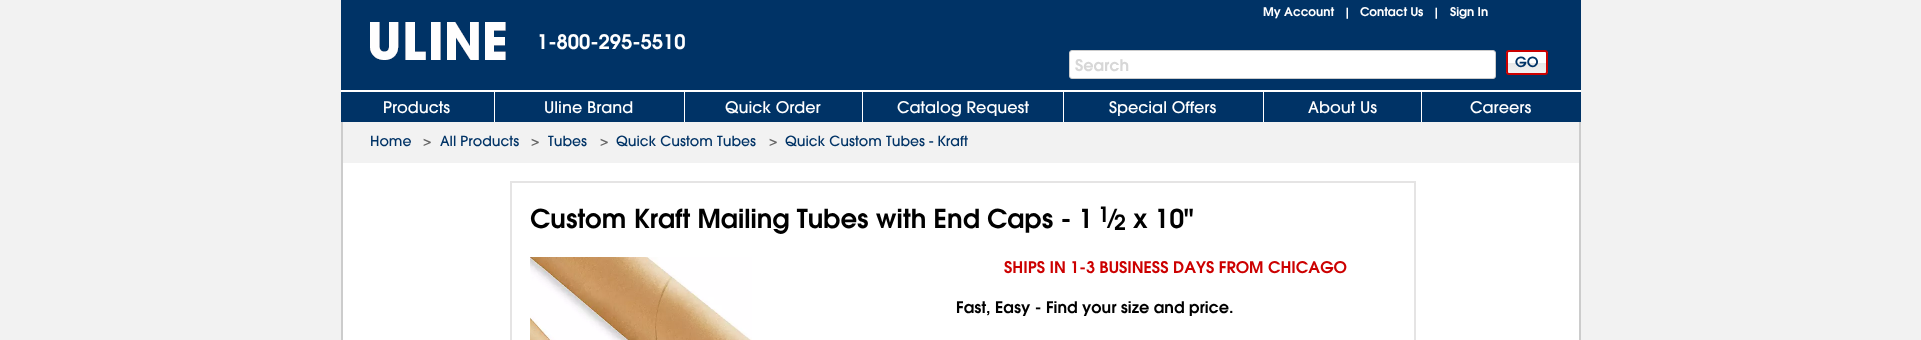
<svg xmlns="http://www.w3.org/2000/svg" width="1921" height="340">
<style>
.a{font:600 12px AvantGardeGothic;fill:#fff}
.b{font:600 11px AvantGardeGothic;fill:#fff}
.c{font:600 20px AvantGardeGothic;fill:#fff}
.d{font:600 16px AvantGardeGothic;fill:#d7d7d7}
.e{font:600 14px AvantGardeGothic;fill:#036}
.f{font:500 16px AvantGardeGothic;fill:#fff}
.g{font:500 14px AvantGardeGothic;fill:#036}
.h{font:500 14px AvantGardeGothic;fill:#666}
.i{font:600 26px AvantGardeGothic;fill:#000}
.j{font:600 21px AvantGardeGothic;fill:#000}
.k{font:600 16px AvantGardeGothic;fill:#c00}
.l{font:600 16px AvantGardeGothic;fill:#000}
</style>
<defs>
<clipPath id="clip1"><rect x="1506" y="50" width="42" height="25" rx="3"/></clipPath>
<linearGradient id="g1" gradientUnits="userSpaceOnUse" x1="1527" y1="52" x2="1527" y2="73"><stop offset="0.5" stop-color="#fff"/><stop offset="0.5" stop-color="#e7e7e7"/><stop offset="1" stop-color="#f1f1f1"/></linearGradient>
</defs>
<rect width="100%" height="100%" fill="#f2f2f2"/>
<path fill="#fff" d="M343 163h1236v177H343z"/>
<path fill="#036" d="M341 0h1240v122H341z"/>
<image href="1.png" x="370" y="22" width="136" height="38"/>
<rect fill="#fff" stroke="#ccc" x="1069.5" y="50.5" width="426" height="28" rx="2.5"/>
<g clip-path="url(#clip1)">
<path fill="url(#g1)" d="M1506 52h42v21H1506z"/>
</g>
<rect fill="none" stroke="#c00" stroke-width="2" x="1507" y="51" width="40" height="23" rx="2"/>
<path fill="#fff" d="M341 90h1240v2H341z"/>
<path fill="#fff" d="M494 92h1v30H494z"/>
<path fill="#fff" d="M684 92h1v30H684z"/>
<path fill="#fff" d="M862 92h1v30H862z"/>
<path fill="#fff" d="M1063 92h1v30H1063z"/>
<path fill="#fff" d="M1263 92h1v30H1263z"/>
<path fill="#fff" d="M1421 92h1v30H1421z"/>
<path fill="#ccc" d="M1579 122h2v218H1579z"/>
<path fill="#ccc" d="M341 122h2v218H341z"/>
<path fill="none" stroke="#e5e4e4" stroke-width="2" d="M511 182h904v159H511z"/>
<image href="2.png" x="530" y="257" width="222" height="83"/>
<text class="a" x="1263" y="16">My Account</text>
<text class="b" x="1344" y="16">|</text>
<text class="a" x="1360" y="16">Contact Us</text>
<text class="b" x="1433" y="16">|</text>
<text class="a" x="1450" y="16">Sign In</text>
<text class="c" x="537" y="49">1-800-295-5510</text>
<text class="d" x="1075" y="71">Search</text>
<text class="e" x="1515" y="67">GO</text>
<text class="f" x="383" y="113">Products</text>
<text class="f" x="544" y="113">Uline Brand</text>
<text class="f" x="725" y="113">Quick Order</text>
<text class="f" x="897" y="113">Catalog Request</text>
<text class="f" x="1109" y="113">Special Offers</text>
<text class="f" x="1308" y="113">About Us</text>
<text class="f" x="1470" y="113">Careers</text>
<text class="g" x="370" y="146">Home</text>
<text class="h" x="423" y="146">&gt;</text>
<text class="g" x="440" y="146">All Products</text>
<text class="h" x="531" y="146">&gt;</text>
<text class="g" x="548" y="146">Tubes</text>
<text class="h" x="600" y="146">&gt;</text>
<text class="g" x="616" y="146">Quick Custom Tubes</text>
<text class="h" x="769" y="146">&gt;</text>
<text class="g" x="785" y="146">Quick Custom Tubes - Kraft</text>
<text class="i" x="530" y="228">Custom Kraft Mailing Tubes with End Caps - 1</text>
<text class="j" x="1098" y="222">1</text>
<text class="i" x="1110" y="228">⁄</text>
<text class="j" x="1114" y="230">2</text>
<text class="i" x="1133" y="228">x 10"</text>
<text class="k" x="1004" y="273">SHIPS IN 1-3 BUSINESS DAYS FROM CHICAGO</text>
<text class="l" x="956" y="313">Fast, Easy - Find your size and price.</text>
</svg>
